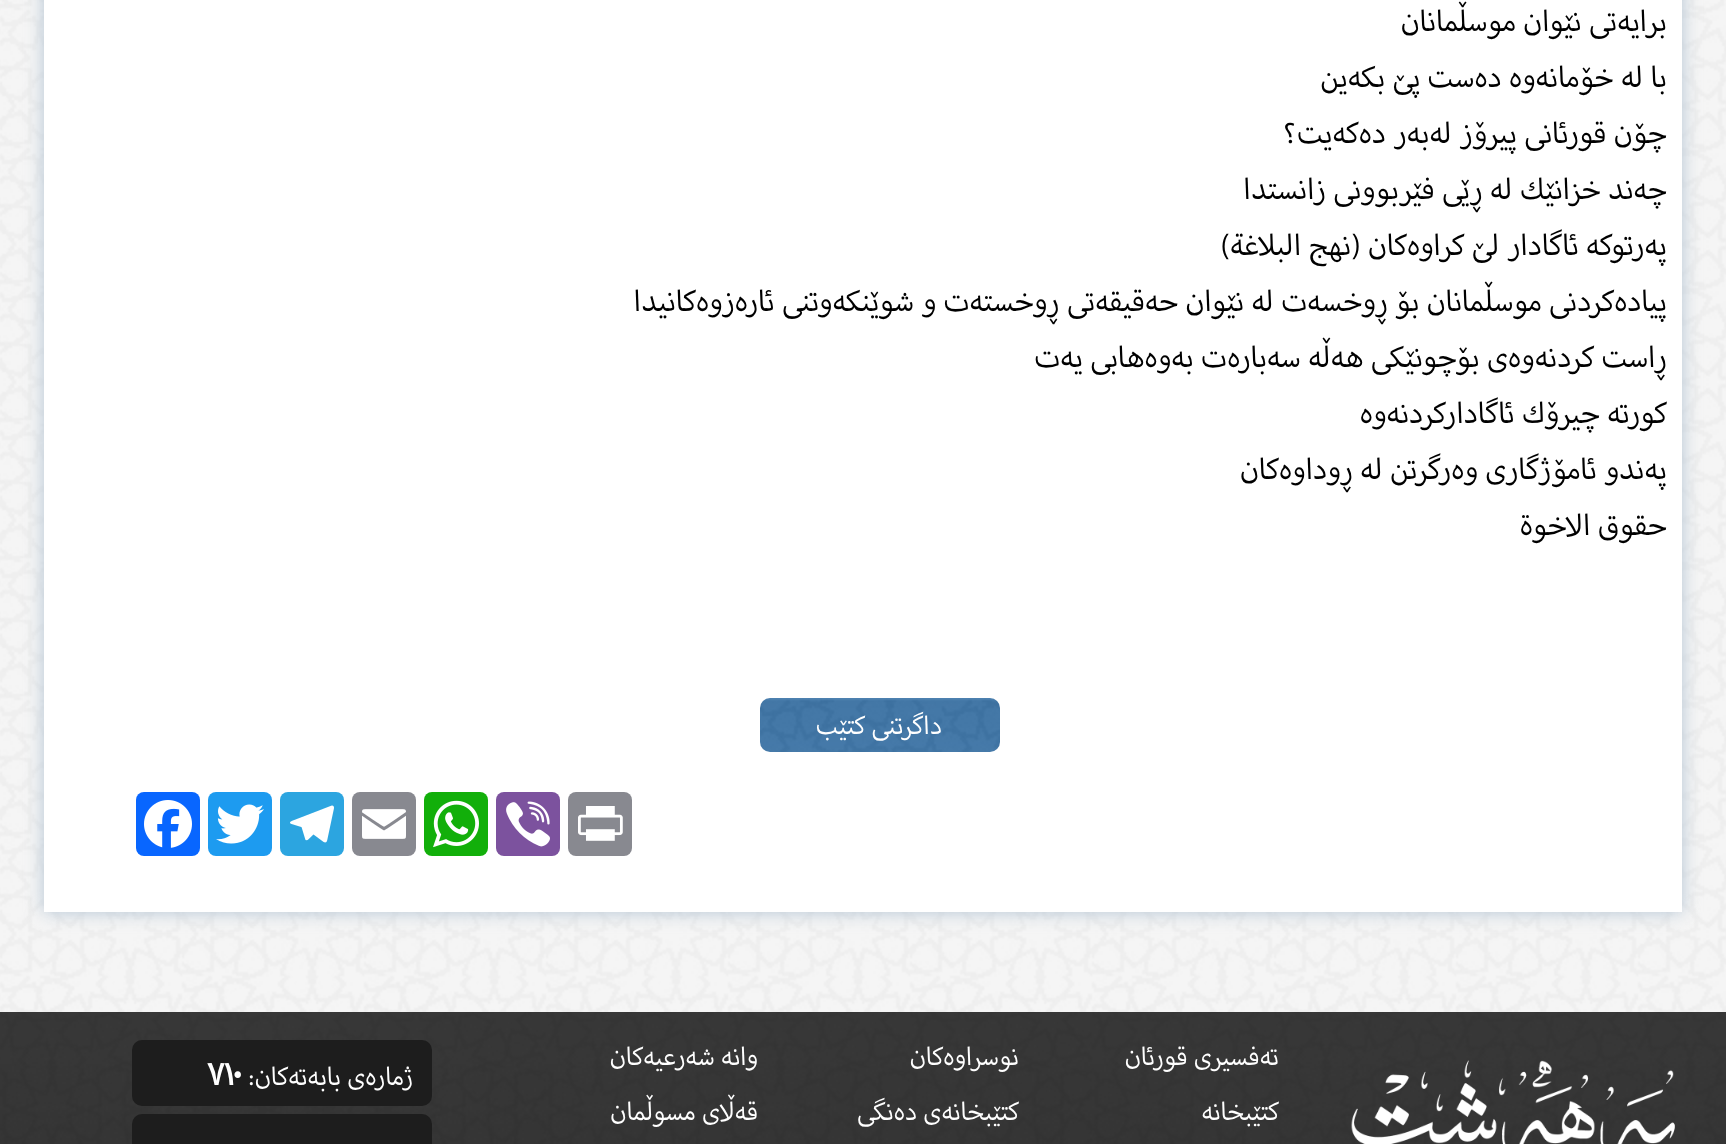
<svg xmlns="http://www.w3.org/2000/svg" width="1726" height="1144">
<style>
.a{font:37.3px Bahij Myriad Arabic;direction:rtl;fill:#000}
.b{font:32px Bahij Myriad Arabic;direction:rtl;fill:#fff}
.c{font:bold 40px Bahij Myriad Arabic;fill:#fff}
</style>
<rect width="100%" height="100%" fill="#fff"/>
<image href="1.png" x="0" y="0" width="1726" height="1012"/>
<path fill="#b3c4d4" filter="blur(9px)" d="M44 -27h1638v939H44z"/>
<path fill="#fff" d="M44 0h1638v912H44z"/>
<image href="2.png" x="760" y="698" width="240" height="54"/>
<rect fill="#888990" x="568" y="792" width="64" height="64" rx="8"/>
<image href="3.png" x="578" y="806" width="45" height="35"/>
<rect fill="#7c529e" x="496" y="792" width="64" height="64" rx="8"/>
<image href="4.png" x="506" y="801" width="44" height="46"/>
<rect fill="#12af0a" x="424" y="792" width="64" height="64" rx="8"/>
<image href="5.png" x="433" y="800" width="46" height="48"/>
<rect fill="#888990" x="352" y="792" width="64" height="64" rx="8"/>
<image href="6.png" x="362" y="809" width="44" height="30"/>
<rect fill="#2ca5e0" x="280" y="792" width="64" height="64" rx="8"/>
<image href="7.png" x="290" y="805" width="44" height="38"/>
<rect fill="#1d9bf0" x="208" y="792" width="64" height="64" rx="8"/>
<image href="8.png" x="216" y="804" width="48" height="40"/>
<rect fill="#0866ff" x="136" y="792" width="64" height="64" rx="8"/>
<image href="9.png" x="144" y="800" width="48" height="48"/>
<image href="10.png" x="0" y="1012" width="1726" height="132"/>
<image href="11.png" x="1351" y="1060" width="324" height="84"/>
<rect fill="#1d1d1d" x="132" y="1040" width="300" height="66" rx="10"/>
<rect fill="#1d1d1d" x="132" y="1114" width="300" height="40" rx="10"/>
<text class="a" x="1667" y="31">برایەتى نێوان موسڵمانان</text>
<text class="a" x="1667" y="87">با لە خۆمانەوە دەست پێ بكەین</text>
<text class="a" x="1667" y="143">چۆن قورئانى پیرۆز لەبەر دەكەیت؟</text>
<text class="a" x="1667" y="199">چەند خزانێك لە ڕێى فێربوونى زانستدا</text>
<text class="a" x="1667" y="255">پەرتوكە ئاگادار لێ كراوەكان (نهج البلاغة)</text>
<text class="a" x="1667" y="311">پیادەكردنى موسڵمانان بۆ ڕوخسەت لە نێوان حەقیقەتى ڕوخستەت و شوێنکەوتنى ئارەزوەکانیدا</text>
<text class="a" x="1667" y="367">ڕاست كردنەوەی بۆچونێكی هەڵە سەبارەت بەوەهابی یەت</text>
<text class="a" x="1667" y="423">كورتە چیرۆك ئاگاداركردنەوه</text>
<text class="a" x="1667" y="479">پەندو ئامۆژگاری وەرگرتن لە ڕوداوەكان</text>
<text class="a" x="1667" y="535">حقوق الاخوة</text>
<text class="b" x="942" y="734">داگرتنی کتێب</text>
<text class="b" x="1279" y="1065">تەفسیری قورئان</text>
<text class="b" x="1019" y="1065">نوسراوەکان</text>
<text class="b" x="758" y="1065">وانە شەرعیەکان</text>
<text class="b" x="1279" y="1120">کتێبخانە</text>
<text class="b" x="1019" y="1120">کتێبخانەی دەنگی</text>
<text class="b" x="758" y="1120">قەڵای مسوڵمان</text>
<text class="b" x="413" y="1085">ژمارەی بابەتەکان:</text>
<text class="c" x="207" y="1085">٧١٠</text>
</svg>
